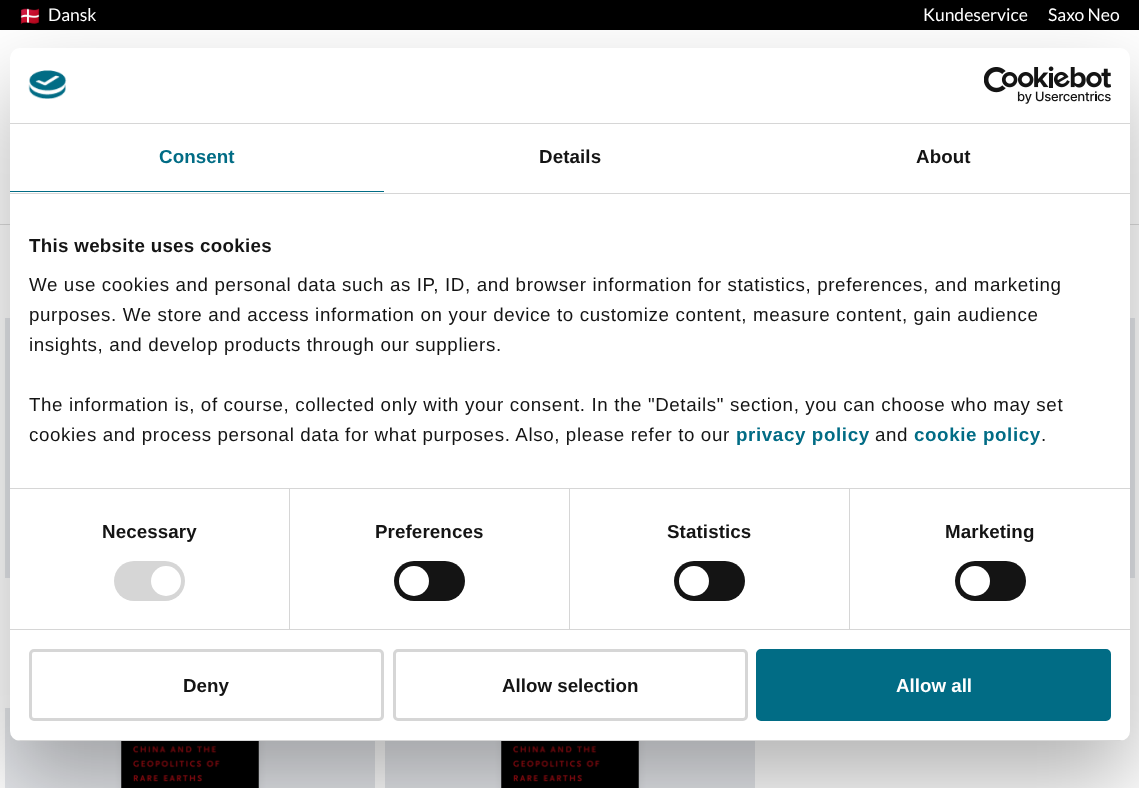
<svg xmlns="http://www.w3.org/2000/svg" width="1139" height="788">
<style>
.a{font:17.5px Lato;fill:#fff}
.b{font:bold 18.75px Liberation Sans;letter-spacing:0.1px;fill:#016c85}
.c{font:bold 18.75px Liberation Sans;letter-spacing:0.1px;fill:#141414}
.d{font:bold 18.75px Liberation Sans;letter-spacing:0.3px;fill:#141414}
.e{font:18.75px Liberation Sans;letter-spacing:0.62px;fill:#141414}
.f{font:bold 18.75px Liberation Sans;letter-spacing:0.62px;fill:#016c85}
.g{font:bold 18.75px Liberation Sans;fill:#141414}
.h{font:bold 18.75px Liberation Sans;fill:#fff}
</style>
<defs>
<clipPath id="clip1"><rect x="10" y="48" width="1120" height="693" rx="10"/></clipPath>
</defs>
<rect width="100%" height="100%" fill="#fff"/>
<path fill="#000" d="M0 0h1139v30H0z"/>
<image href="1.png" x="20" y="8" width="20" height="16"/>
<path fill="#ddd" d="M0 224h1139v1H0z"/>
<path fill="#e5e7eb" d="M5 318h5v260H5z"/>
<path fill="#e5e7eb" d="M1130 318h5v260H1130z"/>
<path fill="#e5e7eb" d="M5 708h370v80H5z"/>
<path fill="#0000001a" filter="blur(4px)" d="M123 734h135v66H123z"/>
<image href="4.png" x="121" y="741" width="138" height="47"/>
<path fill="#e5e7eb" d="M385 741h370v47H385z"/>
<path fill="#0000001a" filter="blur(4px)" d="M503 734h135v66H503z"/>
<image href="4.png" x="501" y="741" width="138" height="47"/>
<rect fill="#0000004d" filter="blur(42.5px)" x="10" y="88" width="1120" height="693" rx="10"/>
<rect fill="#fff" x="10" y="48" width="1120" height="693" rx="10"/>
<path fill="#d6d6d6" d="M10 123h1120v1H10z"/>
<image href="2.png" x="28" y="70" width="39" height="29"/>
<image href="3.png" x="984" y="66" width="127" height="38"/>
<path fill="#d6d6d6" d="M10 193h1120v1H10z"/>
<path fill="#016c85" d="M10 191h374v1H10z"/>
<path fill="#d6d6d6" d="M10 488h1120v1H10z"/>
<path fill="#d6d6d6" d="M10 629h1120v1H10z"/>
<path fill="#d6d6d6" d="M289 489h1v140H289z"/>
<rect fill="#d6d6d6" x="114" y="561" width="71" height="40" rx="20"/>
<circle fill="#fff" cx="166" cy="581" r="15"/>
<path fill="#d6d6d6" d="M569 489h1v140H569z"/>
<rect fill="#141414" x="394" y="561" width="71" height="40" rx="20"/>
<circle fill="#fff" cx="414" cy="581" r="15"/>
<path fill="#d6d6d6" d="M849 489h1v140H849z"/>
<rect fill="#141414" x="674" y="561" width="71" height="40" rx="20"/>
<circle fill="#fff" cx="694" cy="581" r="15"/>
<rect fill="#141414" x="955" y="561" width="71" height="40" rx="20"/>
<circle fill="#fff" cx="975" cy="581" r="15"/>
<g clip-path="url(#clip1)">
<path fill="#d6d6d6" d="M10 740h1120v1H10z"/>
</g>
<rect fill="none" stroke="#d6d6d6" stroke-width="3" x="30.5" y="650.5" width="352" height="69" rx="3.5"/>
<rect fill="none" stroke="#d6d6d6" stroke-width="3" x="394.5" y="650.5" width="352" height="69" rx="3.5"/>
<rect fill="#016c85" stroke="#016c85" stroke-width="3" x="757.5" y="650.5" width="352" height="69" rx="3.5"/>
<text class="a" x="48" y="21">Dansk</text>
<text class="a" x="923" y="21">Kundeservice</text>
<text class="a" x="1048" y="21">Saxo Neo</text>
<text class="b" x="159" y="163">Consent</text>
<text class="c" x="539" y="163">Details</text>
<text class="c" x="916" y="163">About</text>
<text class="d" x="29" y="252">This website uses cookies</text>
<text class="e" x="29" y="291">We use cookies and personal data such as IP, ID, and browser information for statistics, preferences, and marketing</text>
<text class="e" x="29" y="321">purposes. We store and access information on your device to customize content, measure content, gain audience</text>
<text class="e" x="29" y="351">insights, and develop products through our suppliers.</text>
<text class="e" x="29" y="411">The information is, of course, collected only with your consent. In the "Details" section, you can choose who may set</text>
<text class="e" x="29" y="441">cookies and process personal data for what purposes. Also, please refer to our</text>
<text class="f" x="736" y="441">privacy policy</text>
<text class="e" x="875" y="441">and</text>
<text class="f" x="914" y="441">cookie policy</text>
<text class="e" x="1041" y="441">.</text>
<text class="c" x="102" y="538">Necessary</text>
<text class="c" x="375" y="538">Preferences</text>
<text class="c" x="667" y="538">Statistics</text>
<text class="c" x="945" y="538">Marketing</text>
<text class="g" x="183" y="692">Deny</text>
<text class="g" x="502" y="692">Allow selection</text>
<text class="h" x="896" y="692">Allow all</text>
</svg>
